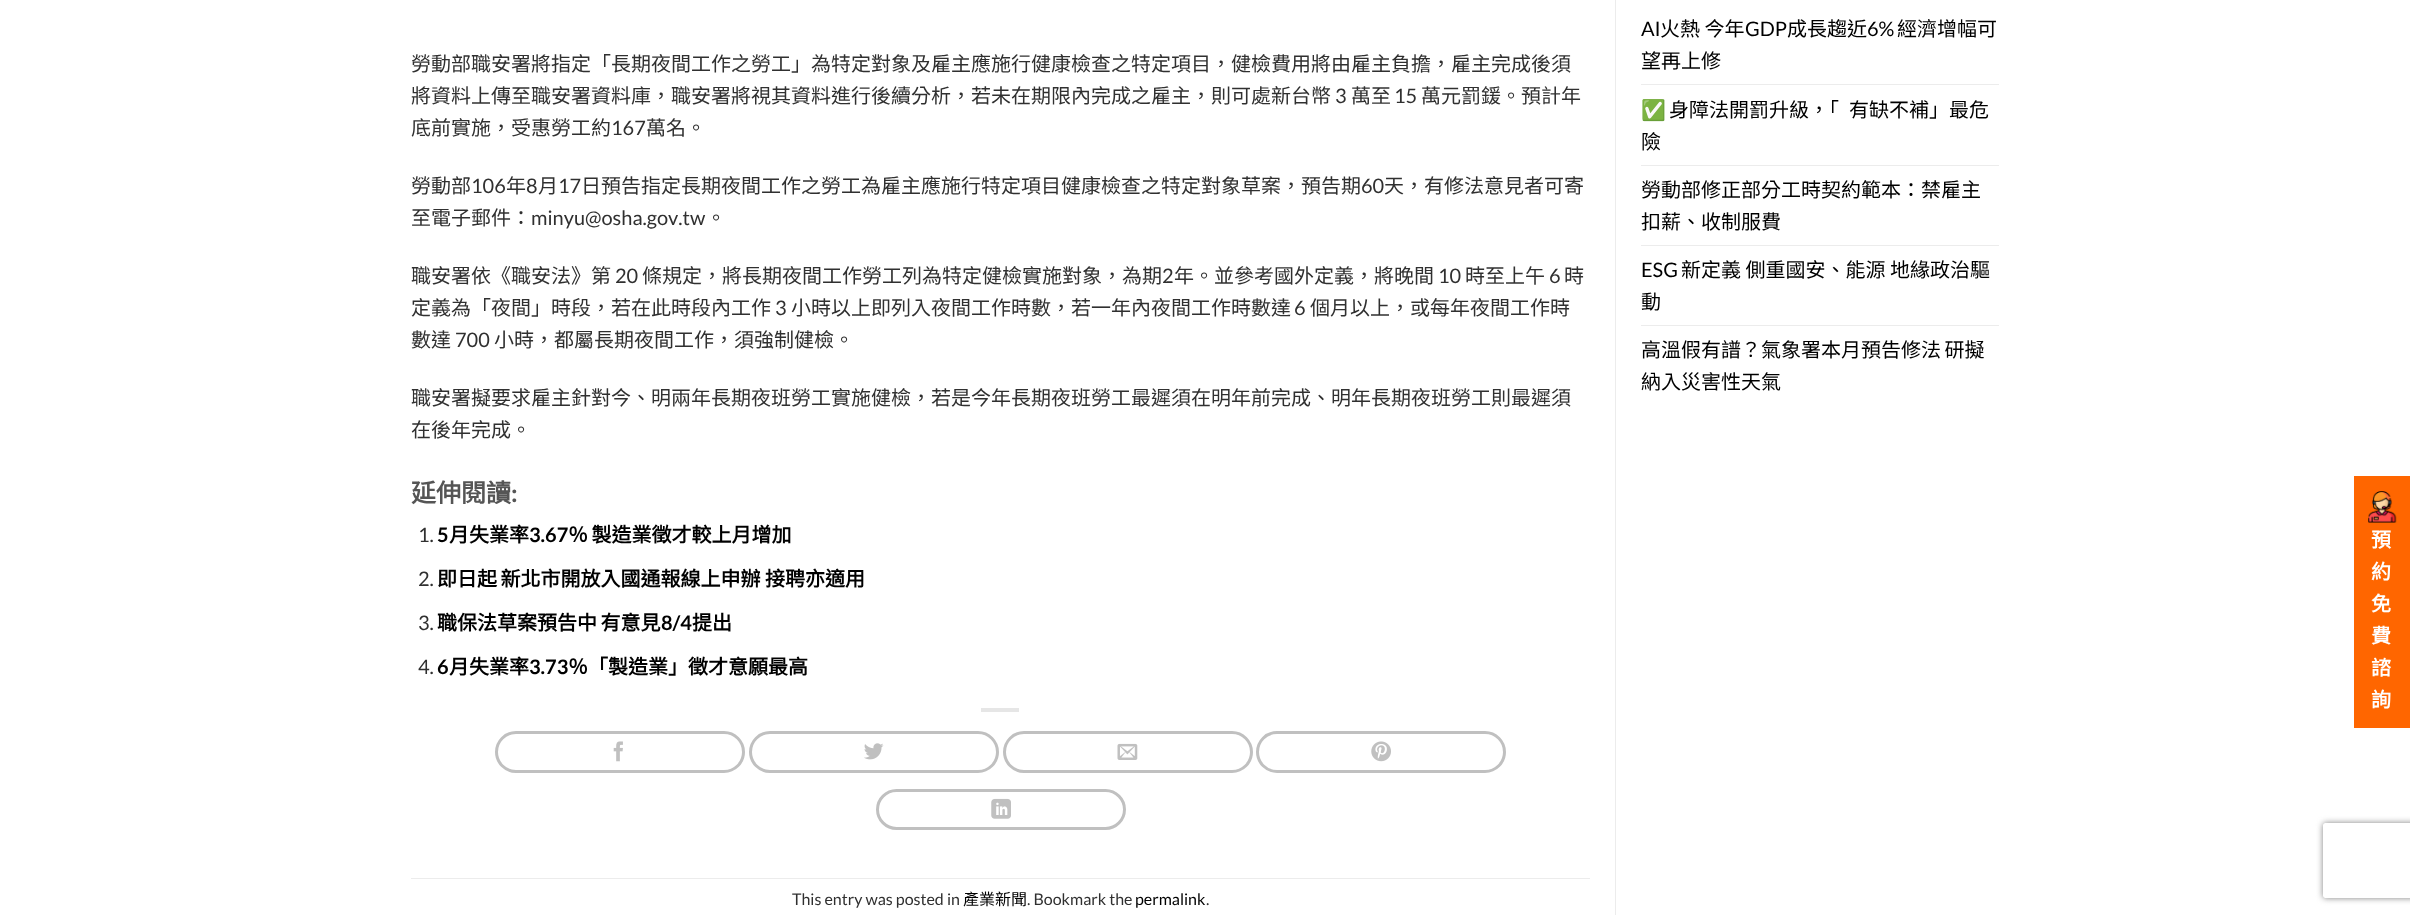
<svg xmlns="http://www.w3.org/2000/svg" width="2410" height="915">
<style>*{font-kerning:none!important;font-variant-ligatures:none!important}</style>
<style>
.a{font:20px Noto Sans CJK TC;fill:#303030}
.b{font:20px Lato;fill:#303030}
.c{font:bold 25px Noto Sans CJK TC;fill:#555}
.d{font:bold 25px Lato;fill:#555}
.e{font:bold 20px Lato;fill:#000}
.f{font:bold 20px Noto Sans CJK TC;fill:#000}
.g{font:16px Lato;fill:#303030}
.h{font:16px Noto Sans CJK TC;fill:#000}
.i{font:16px Lato;fill:#000}
.j{font:20px Lato;fill:#000}
.k{font:20px Noto Sans CJK TC;fill:#000}
.l{font:20px Noto Color Emoji;fill:#000}
.m{font:bold 20px Noto Sans CJK TC;fill:#fff}
</style>
<defs>
<clipPath id="clip1"><path d="M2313 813h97v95h-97zm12.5 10h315c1.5 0 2.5 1 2.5 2.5v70c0 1.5-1 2.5-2.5 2.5h-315c-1.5 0-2.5-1-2.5-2.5v-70c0-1.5 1-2.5 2.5-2.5z" clip-rule="evenodd"/></clipPath>
</defs>
<rect width="100%" height="100%" fill="#fff"/>
<path fill="#e6e6e6" d="M981 708h38v4H981z"/>
<rect fill="none" stroke="#c0c0c0" stroke-width="3" x="496.5" y="732.5" width="247" height="39" rx="19.5"/>
<image href="1.png" x="613" y="741" width="10" height="21"/>
<rect fill="none" stroke="#c0c0c0" stroke-width="3" x="750.5" y="732.5" width="247" height="39" rx="19.5"/>
<image href="2.png" x="864" y="743" width="20" height="17"/>
<rect fill="none" stroke="#c0c0c0" stroke-width="3" x="1004.5" y="732.5" width="247" height="39" rx="19.5"/>
<image href="3.png" x="1117" y="743" width="21" height="17"/>
<rect fill="none" stroke="#c0c0c0" stroke-width="3" x="1257.5" y="732.5" width="247" height="39" rx="19.5"/>
<image href="4.png" x="1371" y="741" width="20" height="21"/>
<rect fill="none" stroke="#c0c0c0" stroke-width="3" x="877.5" y="790.5" width="247" height="38" rx="19"/>
<image href="5.png" x="991" y="798" width="20" height="21"/>
<path fill="#ececec" d="M411 878h1179v1H411z"/>
<path fill="#ececec" d="M1615 0h1v915H1615z"/>
<path fill="#ececec" d="M1641 84h358v1H1641z"/>
<path fill="#ececec" d="M1641 165h358v1H1641z"/>
<path fill="#ececec" d="M1641 245h358v1H1641z"/>
<path fill="#ececec" d="M1641 325h358v1H1641z"/>
<path fill="#f60" d="M2354 476h56v252H2354z"/>
<image href="6.png" x="2368" y="491" width="29" height="32"/>
<g clip-path="url(#clip1)">
<rect fill="#808080" filter="blur(3px)" x="2323" y="823" width="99" height="75" rx="2.5"/>
</g>
<text class="a" x="411" y="71">勞動部職安署將指定「長期夜間工作之勞工」為特定對象及雇主應施行健康檢查之特定項目，健檢費用將由雇主負擔，雇主完成後須</text>
<text class="a" x="411" y="103">將資料上傳至職安署資料庫，職安署將視其資料進行後續分析，若未在期限內完成之雇主，則可處新台幣</text>
<text class="b" x="1335" y="103">3</text>
<text class="a" x="1351" y="103">萬至</text>
<text class="b" x="1394" y="103">15</text>
<text class="a" x="1421" y="103">萬元罰鍰。預計年</text>
<text class="a" x="411" y="135">底前實施，受惠勞工約</text>
<text class="b" x="611" y="135">167</text>
<text class="a" x="646" y="135">萬名。</text>
<text class="a" x="411" y="193">勞動部</text>
<text class="b" x="471" y="193">106</text>
<text class="a" x="506" y="193">年</text>
<text class="b" x="526" y="193">8</text>
<text class="a" x="538" y="193">月</text>
<text class="b" x="558" y="193">17</text>
<text class="a" x="581" y="193">日預告指定長期夜間工作之勞工為雇主應施行特定項目健康檢查之特定對象草案，預告期</text>
<text class="b" x="1361" y="193">60</text>
<text class="a" x="1384" y="193">天，有修法意見者可寄</text>
<text class="a" x="411" y="225">至電子郵件：</text>
<text class="b" x="531" y="225">minyu@osha.gov.tw</text>
<text class="a" x="706" y="225">。</text>
<text class="a" x="411" y="283">職安署依《職安法》第</text>
<text class="b" x="615" y="283">20</text>
<text class="a" x="642" y="283">條規定，將長期夜間工作勞工列為特定健檢實施對象，為期</text>
<text class="b" x="1162" y="283">2</text>
<text class="a" x="1174" y="283">年。並參考國外定義，將晚間</text>
<text class="b" x="1438" y="283">10</text>
<text class="a" x="1465" y="283">時至上午</text>
<text class="b" x="1549" y="283">6</text>
<text class="a" x="1564" y="283">時</text>
<text class="a" x="411" y="315">定義為「夜間」時段，若在此時段內工作</text>
<text class="b" x="775" y="315">3</text>
<text class="a" x="791" y="315">小時以上即列入夜間工作時數，若一年內夜間工作時數達</text>
<text class="b" x="1294" y="315">6</text>
<text class="a" x="1310" y="315">個月以上，或每年夜間工作時</text>
<text class="a" x="411" y="347">數達</text>
<text class="b" x="455" y="347">700</text>
<text class="a" x="494" y="347">小時，都屬長期夜間工作，須強制健檢。</text>
<text class="a" x="411" y="405">職安署擬要求雇主針對今、明兩年長期夜班勞工實施健檢，若是今年長期夜班勞工最遲須在明年前完成、明年長期夜班勞工則最遲須</text>
<text class="a" x="411" y="437">在後年完成。</text>
<text class="c" x="411" y="502">延伸閱讀</text>
<text class="d" x="511" y="502">:</text>
<text class="b" x="418" y="542">1.</text>
<text class="e" x="437" y="542">5</text>
<text class="f" x="449" y="542">月失業率</text>
<text class="e" x="529" y="542">3.67</text>
<text class="f" x="568" y="542" word-spacing="-1">％ 製造業徵才較上月增加</text>
<text class="b" x="418" y="586">2.</text>
<text class="f" x="437" y="586" word-spacing="-1">即日起 新北市開放入國通報線上申辦</text>
<text class="f" x="765" y="586">接聘亦適用</text>
<text class="b" x="418" y="630">3.</text>
<text class="f" x="437" y="630" word-spacing="-1">職保法草案預告中 有意見</text>
<text class="e" x="661" y="630">8/4</text>
<text class="f" x="692" y="630">提出</text>
<text class="b" x="418" y="674">4.</text>
<text class="e" x="437" y="674">6</text>
<text class="f" x="449" y="674">月失業率</text>
<text class="e" x="529" y="674">3.73</text>
<text class="f" x="568" y="674">％「製造業」徵才意願最高</text>
<text class="g" x="792" y="905">This entry was posted in</text>
<text class="h" x="963" y="905">產業新聞</text>
<text class="g" x="1027" y="905">. Bookmark the</text>
<text class="i" x="1135" y="905">permalink</text>
<text class="g" x="1206" y="905">.</text>
<text class="j" x="1641" y="36">AI</text>
<text class="k" x="1660" y="36">火熱 今年</text>
<text class="j" x="1745" y="36">GDP</text>
<text class="k" x="1787" y="36">成長趨近</text>
<text class="j" x="1867" y="36">6%</text>
<text class="k" x="1897" y="36">經濟增幅可</text>
<text class="k" x="1641" y="68">望再上修</text>
<text class="l" x="1641" y="117">✅</text>
<text class="k" x="1669" y="117">身障法開罰升級，「</text>
<text class="k" x="1849" y="117">有缺不補」最危</text>
<text class="k" x="1641" y="149">險</text>
<text class="k" x="1641" y="197">勞動部修正部分工時契約範本：禁雇主</text>
<text class="k" x="1641" y="229">扣薪、收制服費</text>
<text class="j" x="1641" y="277">ESG</text>
<text class="k" x="1681" y="277">新定義 側重國安、能源 地緣政治驅</text>
<text class="k" x="1641" y="309">動</text>
<text class="k" x="1641" y="357" word-spacing="-1">高溫假有譜？氣象署本月預告修法 研擬</text>
<text class="k" x="1641" y="389">納入災害性天氣</text>
<text class="m" x="2371" y="547">預</text>
<text class="m" x="2371" y="579">約</text>
<text class="m" x="2371" y="611">免</text>
<text class="m" x="2371" y="643">費</text>
<text class="m" x="2371" y="675">諮</text>
<text class="m" x="2371" y="707">詢</text>
</svg>
